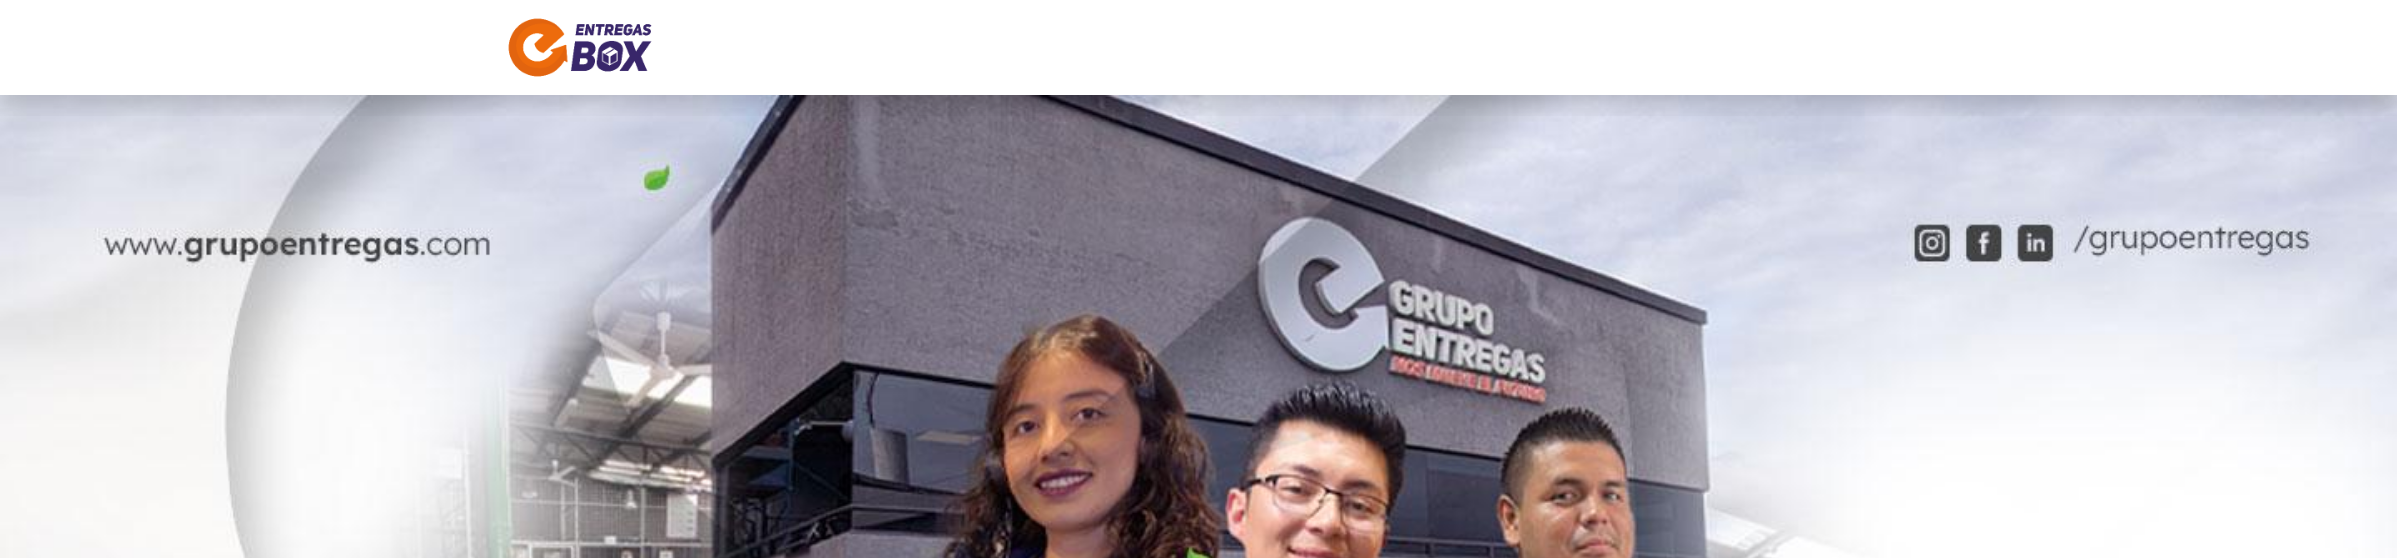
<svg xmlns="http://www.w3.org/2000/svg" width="2397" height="558">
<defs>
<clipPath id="clip1"><path d="M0 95h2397v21H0z"/></clipPath>
</defs>
<rect width="100%" height="100%" fill="#fff"/>
<image href="2.png" x="0" y="95" width="2397" height="463"/>
<g clip-path="url(#clip1)">
<path fill="#00000026" filter="blur(10px)" d="M0 10h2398v95H0z"/>
</g>
<image href="1.png" x="508" y="18" width="144" height="59"/>
</svg>
